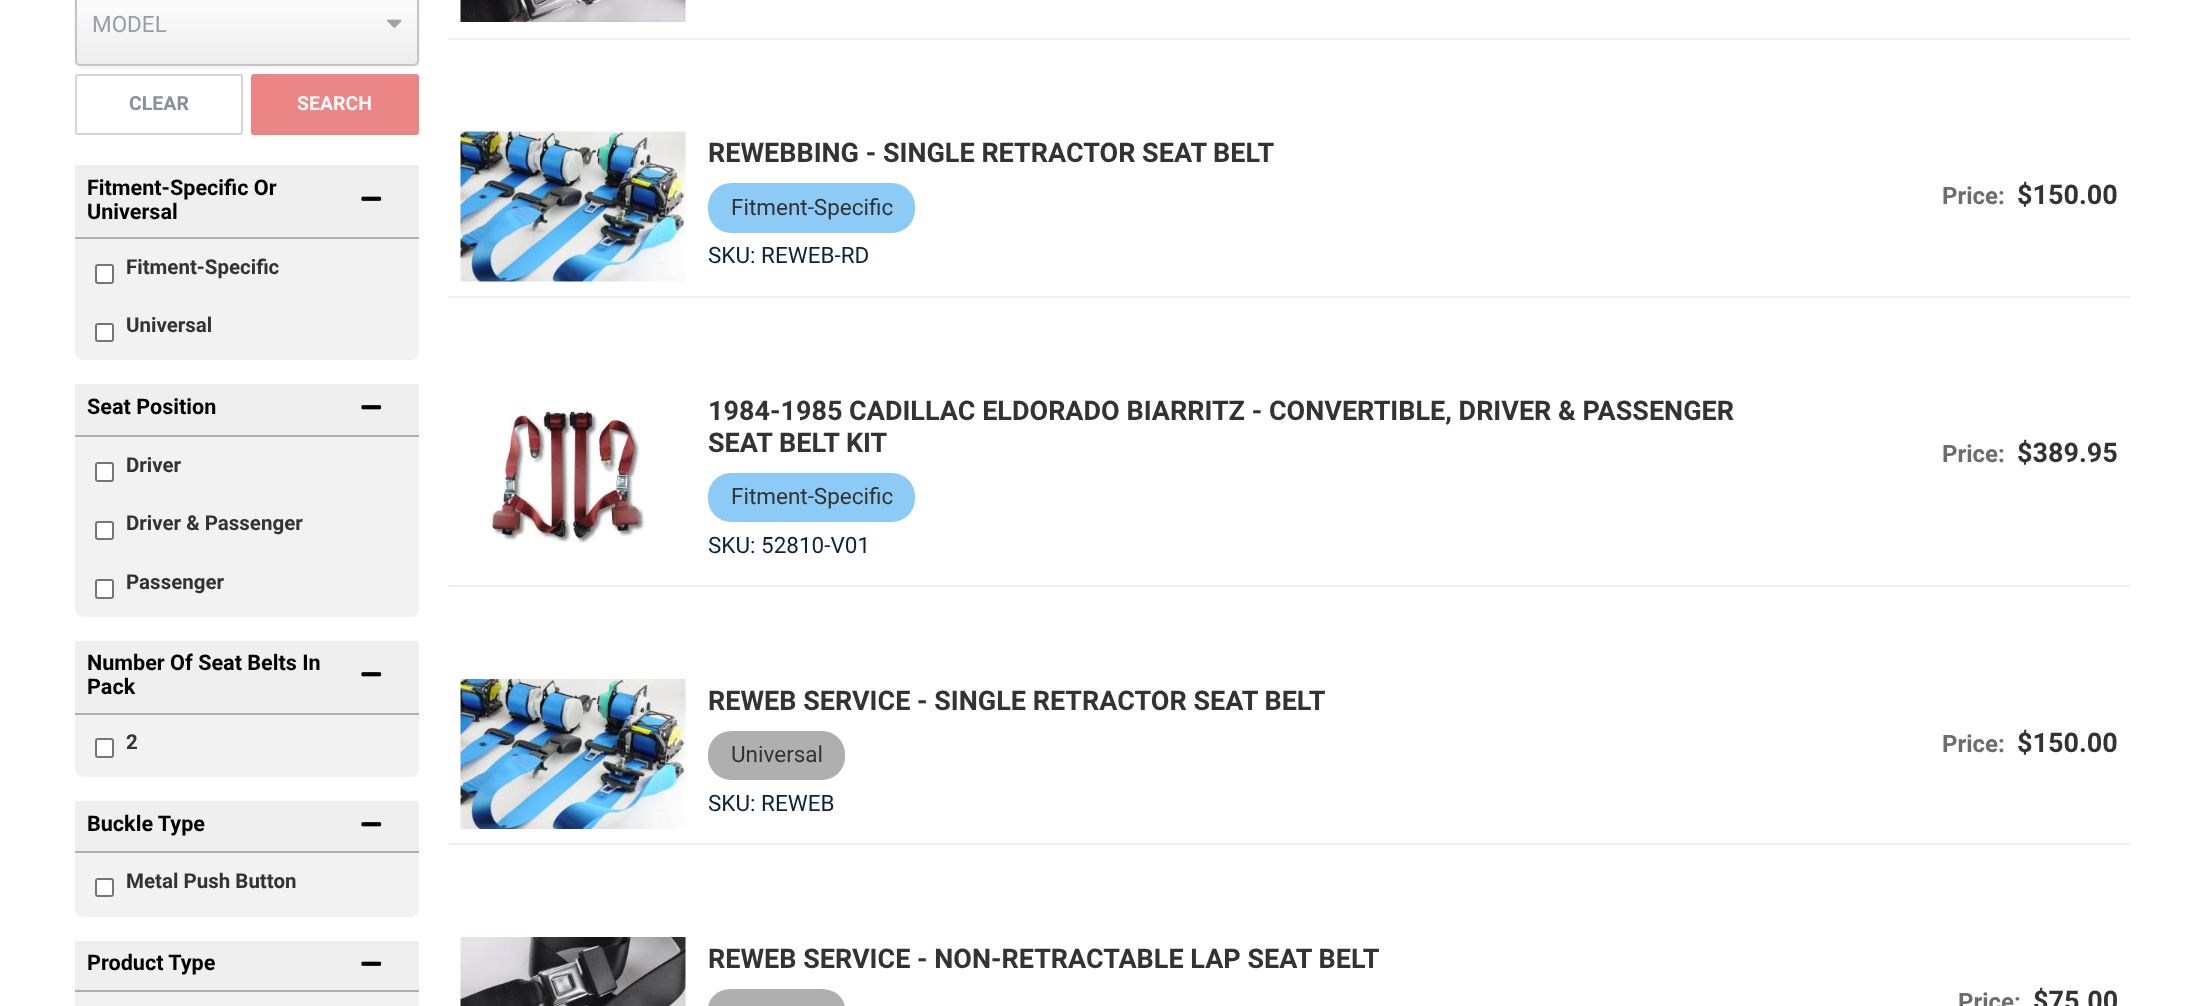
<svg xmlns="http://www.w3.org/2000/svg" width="2189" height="1006">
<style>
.a{font:22.5px Roboto;fill:#989ea4}
.b{font:bold 19.5px Roboto;fill:#85919f}
.c{font:bold 19.5px Roboto;fill:#f7f7f7}
.d{font:bold 21.6px Roboto;fill:#000}
.e{font:bold 20.5px Roboto;fill:#333}
.f{font:bold 27px Roboto;fill:#333}
.g{font:22.5px Roboto;fill:#333}
.h{font:22.5px Roboto;fill:#0b233f}
.i{font:bold 24px Roboto;fill:#6d6d6d}
</style>
<defs>
<clipPath id="clip1"><rect x="75" y="-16" width="344" height="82" rx="5"/></clipPath>
<linearGradient id="g1" gradientUnits="userSpaceOnUse" x1="247" y1="-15" x2="247" y2="65"><stop offset="0" stop-color="#fff"/><stop offset="1" stop-color="#ededed"/></linearGradient>
</defs>
<rect width="100%" height="100%" fill="#fff"/>
<path fill="#f8f8f8" d="M75-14c0 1-1 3-1 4v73c0 3 3 6 6 6h334c3 0 6-3 6-6v-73c0-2-1-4-3-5c1 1 1 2 1 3v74c0 2-2 4-4 4h-334c-3 0-5-2-5-4v-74z"/>
<g clip-path="url(#clip1)">
<path fill="url(#g1)" d="M75 0h344v65H75z"/>
</g>
<image href="1.png" x="387" y="19" width="15" height="9"/>
<rect fill="none" stroke="#c4c4c4" stroke-width="2" x="76" y="-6" width="342" height="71" rx="4"/>
<rect fill="none" stroke="#d5d5d5" stroke-width="2" x="76" y="75" width="166" height="59" rx="2"/>
<rect fill="#ec8686" x="251" y="74" width="168" height="61" rx="3"/>
<rect fill="#f2f2f2" x="75" y="165" width="344" height="195" rx="8"/>
<path fill="#efefef" d="M75 165h344v72H75z"/>
<path fill="#afafaf" d="M75 237h344v2H75z"/>
<image href="2.png" x="361" y="196" width="21" height="5"/>
<rect fill="#fff" stroke="#767676" stroke-width="2" x="96" y="265" width="17" height="18" rx="2"/>
<rect fill="#fff" stroke="#767676" stroke-width="2" x="96" y="324" width="17" height="17" rx="2"/>
<rect fill="#f2f2f2" x="75" y="384" width="344" height="233" rx="8"/>
<path fill="#efefef" d="M75 384h344v51H75z"/>
<path fill="#afafaf" d="M75 435h344v2H75z"/>
<image href="3.png" x="361" y="405" width="21" height="5"/>
<rect fill="#fff" stroke="#767676" stroke-width="2" x="96" y="463" width="17" height="18" rx="2"/>
<rect fill="#fff" stroke="#767676" stroke-width="2" x="96" y="522" width="17" height="17" rx="2"/>
<rect fill="#fff" stroke="#767676" stroke-width="2" x="96" y="580" width="17" height="18" rx="2"/>
<rect fill="#f2f2f2" x="75" y="641" width="344" height="136" rx="8"/>
<path fill="#efefef" d="M75 641h344v72H75z"/>
<path fill="#afafaf" d="M75 713h344v2H75z"/>
<image href="3.png" x="361" y="672" width="21" height="5"/>
<rect fill="#fff" stroke="#767676" stroke-width="2" x="96" y="739" width="17" height="18" rx="2"/>
<rect fill="#f2f2f2" x="75" y="801" width="344" height="116" rx="8"/>
<path fill="#efefef" d="M75 801h344v50H75z"/>
<path fill="#afafaf" d="M75 851h344v2H75z"/>
<image href="3.png" x="361" y="822" width="21" height="5"/>
<rect fill="#fff" stroke="#767676" stroke-width="2" x="96" y="879" width="17" height="17" rx="2"/>
<path fill="#f2f2f2" d="M75 992h344v14H75z"/>
<path fill="#efefef" d="M75 941h344v49H75z"/>
<path fill="#afafaf" d="M75 990h344v2H75z"/>
<image href="2.png" x="361" y="961" width="21" height="5"/>
<path fill="#efefef" d="M449 38h1681v2H449z"/>
<image href="4.png" x="460" y="0" width="226" height="22"/>
<path fill="#efefef" d="M449 296h1681v2H449z"/>
<image href="5.png" x="460" y="131" width="226" height="151"/>
<rect fill="#8bcbf5" x="708" y="183" width="207" height="50" rx="23"/>
<path fill="#efefef" d="M449 585h1681v2H449z"/>
<image href="6.png" x="490" y="407" width="155" height="136"/>
<rect fill="#8bcbf5" x="708" y="473" width="207" height="49" rx="23"/>
<path fill="#efefef" d="M449 843h1681v2H449z"/>
<image href="7.png" x="460" y="679" width="226" height="150"/>
<rect fill="#afafaf" x="708" y="731" width="137" height="49" rx="23"/>
<image href="8.png" x="460" y="937" width="226" height="69"/>
<rect fill="#afafaf" x="708" y="989" width="137" height="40" rx="23"/>
<text class="a" x="92" y="32">MODEL</text>
<text class="b" x="129" y="110">CLEAR</text>
<text class="c" x="297" y="110">SEARCH</text>
<text class="d" x="87" y="195">Fitment-Specific Or</text>
<text class="d" x="87" y="219">Universal</text>
<text class="e" x="126" y="274">Fitment-Specific</text>
<text class="e" x="126" y="332">Universal</text>
<text class="d" x="87" y="414">Seat Position</text>
<text class="e" x="126" y="472">Driver</text>
<text class="e" x="126" y="530">Driver &amp; Passenger</text>
<text class="e" x="126" y="589">Passenger</text>
<text class="d" x="87" y="670">Number Of Seat Belts In</text>
<text class="d" x="87" y="694">Pack</text>
<text class="e" x="126" y="749">2</text>
<text class="d" x="87" y="831">Buckle Type</text>
<text class="e" x="126" y="888">Metal Push Button</text>
<text class="d" x="87" y="970">Product Type</text>
<text class="f" x="708" y="162">REWEBBING - SINGLE RETRACTOR SEAT BELT</text>
<text class="g" x="731" y="215">Fitment-Specific</text>
<text class="h" x="708" y="263">SKU: REWEB-RD</text>
<text class="i" x="1942" y="204">Price:</text>
<text class="f" x="2017" y="204">$150.00</text>
<text class="f" x="708" y="420">1984-1985 CADILLAC ELDORADO BIARRITZ - CONVERTIBLE, DRIVER &amp; PASSENGER</text>
<text class="f" x="708" y="452">SEAT BELT KIT</text>
<text class="g" x="731" y="504">Fitment-Specific</text>
<text class="h" x="708" y="553">SKU: 52810-V01</text>
<text class="i" x="1942" y="462">Price:</text>
<text class="f" x="2017" y="462">$389.95</text>
<text class="f" x="708" y="710">REWEB SERVICE - SINGLE RETRACTOR SEAT BELT</text>
<text class="g" x="731" y="762">Universal</text>
<text class="h" x="708" y="811">SKU: REWEB</text>
<text class="i" x="1942" y="752">Price:</text>
<text class="f" x="2017" y="752">$150.00</text>
<text class="f" x="708" y="968">REWEB SERVICE - NON-RETRACTABLE LAP SEAT BELT</text>
<text class="i" x="1958" y="1010">Price:</text>
<text class="f" x="2033" y="1010">$75.00</text>
</svg>
